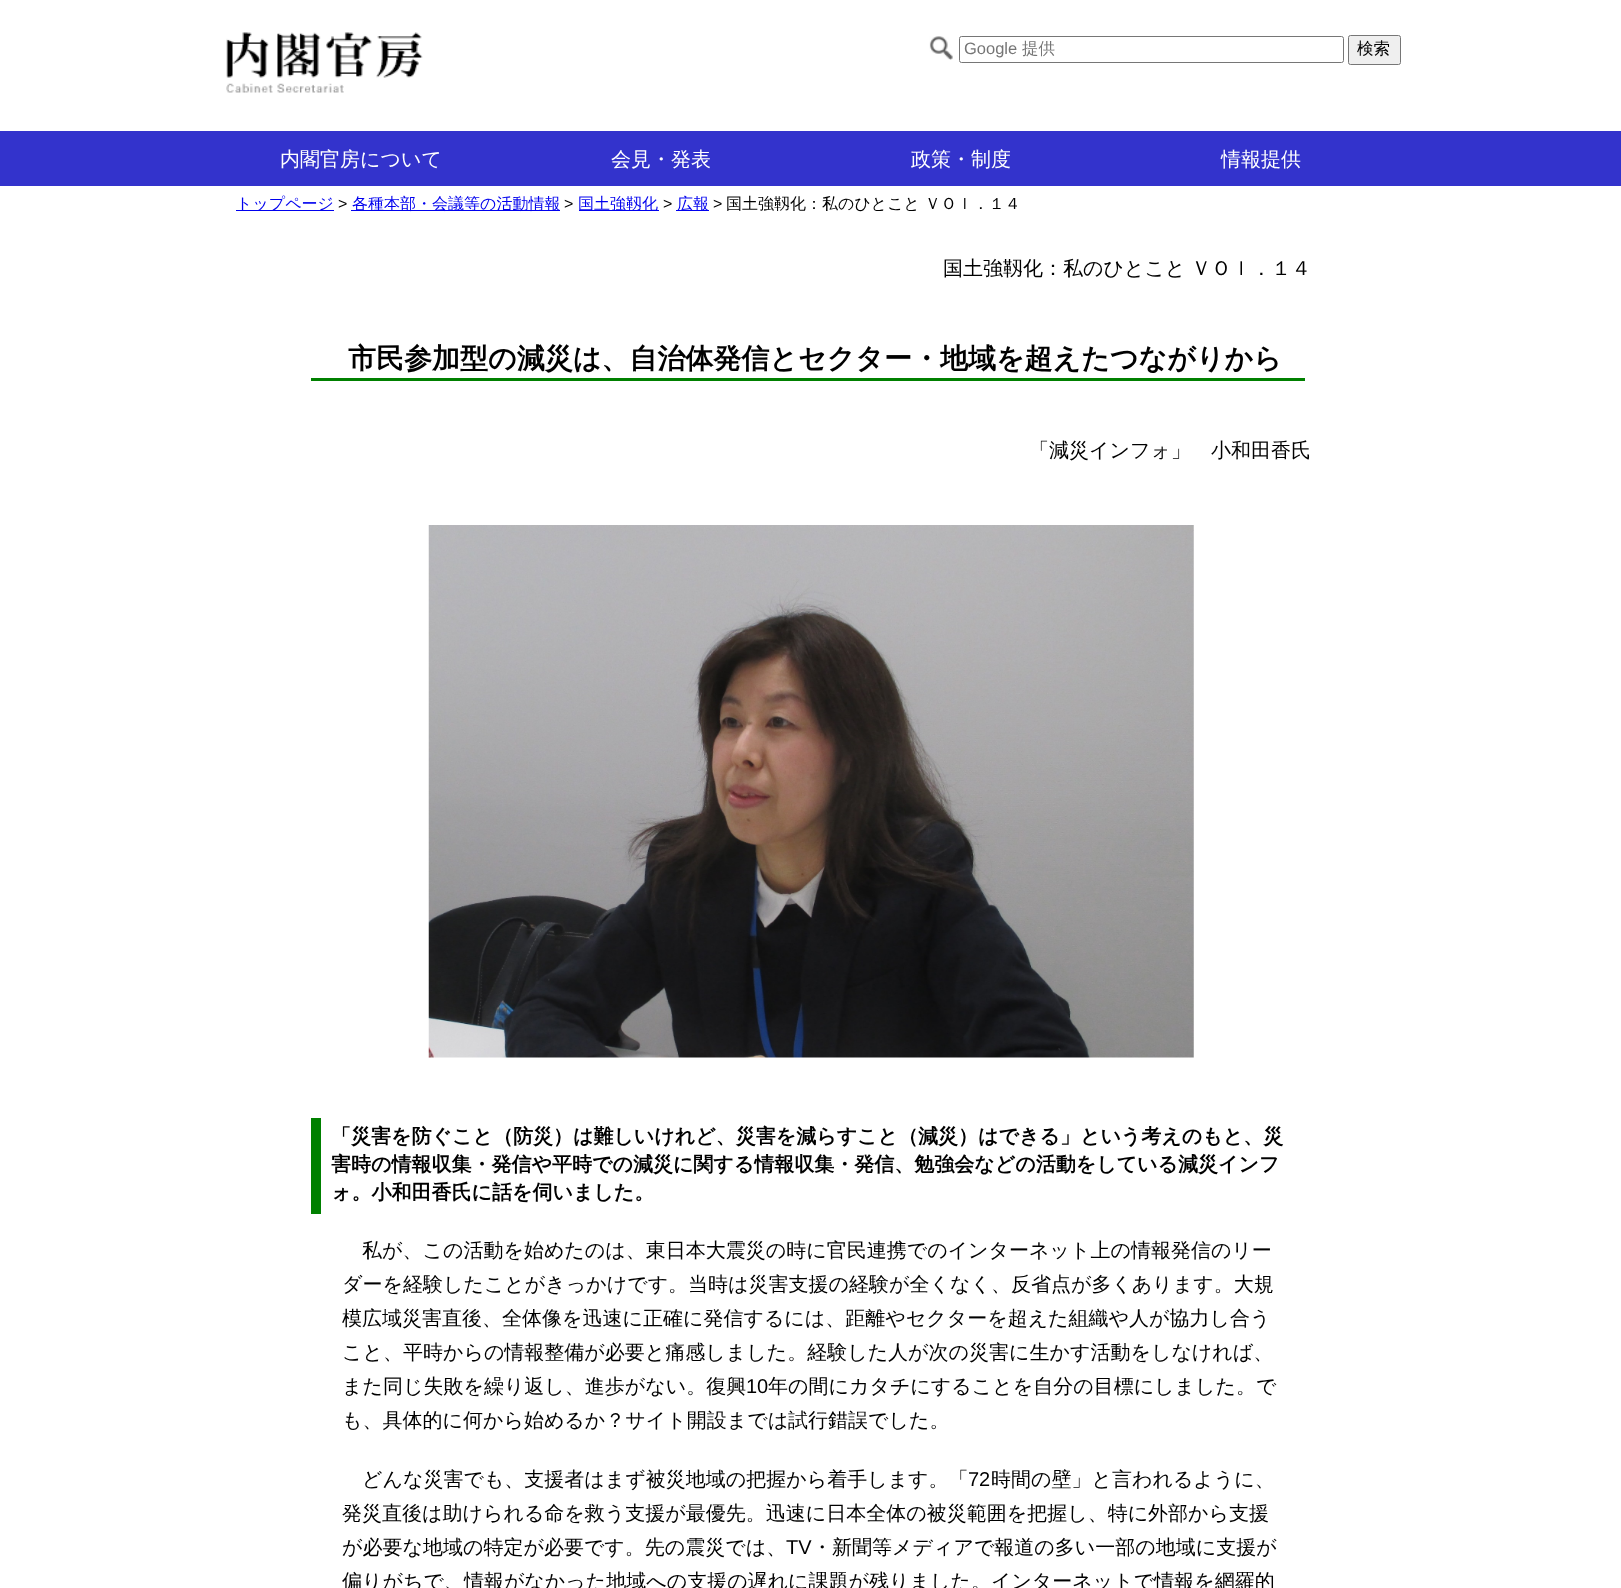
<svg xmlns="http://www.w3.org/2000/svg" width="1621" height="1588">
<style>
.a{font:16.5px Liberation Sans;fill:#757575}
.b{font:500 16.5px WenQuanYi Zen Hei;fill:#757575}
.c{font:500 16.5px WenQuanYi Zen Hei;fill:#000}
.d{font:500 20px WenQuanYi Zen Hei;fill:#fff}
.e{font:500 16px WenQuanYi Zen Hei;fill:#00e}
.f{font:16px Liberation Sans;fill:#000}
.g{font:500 16px WenQuanYi Zen Hei;fill:#000}
.h{font:500 20px WenQuanYi Zen Hei;fill:#000}
.i{font:bold 28px WenQuanYi Zen Hei;fill:#000}
.j{font:bold 20px WenQuanYi Zen Hei;fill:#000}
.k{font:20px Liberation Sans;fill:#000}
</style>
<rect width="100%" height="100%" fill="#fff"/>
<image href="1.png" x="226" y="32" width="197" height="61"/>
<image href="2.png" x="929" y="36" width="24" height="24"/>
<rect fill="none" stroke="#767676" x="959.5" y="36.5" width="384" height="26" rx="2"/>
<rect fill="#efefef" stroke="#767676" x="1348.5" y="35.5" width="52" height="29" rx="2"/>
<path fill="#33c" d="M0 131h1621v55H0z"/>
<path fill="#00e" d="M236 210h98v1H236z"/>
<path fill="#00e" d="M351 210h209v1H351z"/>
<path fill="#00e" d="M579 210h80v1H579z"/>
<path fill="#00e" d="M676 210h33v1H676z"/>
<path fill="#008000" d="M311 378h994v3H311z"/>
<image href="3.png" x="428" y="525" width="766" height="533"/>
<path fill="#008000" d="M311 1118h10v96H311z"/>
<text class="a" x="964" y="54">Google</text>
<text class="b" x="1022" y="54">提供</text>
<text class="c" x="1357" y="54">検索</text>
<text class="d" x="280" y="166">内閣官房について</text>
<text class="d" x="611" y="166">会見・発表</text>
<text class="d" x="911" y="166">政策・制度</text>
<text class="d" x="1221" y="166">情報提供</text>
<text class="e" x="236" y="209">トップページ</text>
<text class="f" x="338" y="209">&gt;</text>
<text class="e" x="352" y="209">各種本部・会議等の活動情報</text>
<text class="f" x="564" y="209">&gt;</text>
<text class="e" x="578" y="209">国土強靱化</text>
<text class="f" x="663" y="209">&gt;</text>
<text class="e" x="677" y="209">広報</text>
<text class="f" x="713" y="209">&gt;</text>
<text class="g" x="726" y="209">国土強靱化：私のひとこと ＶＯｌ．１４</text>
<text class="h" x="943" y="275">国土強靱化：私のひとこと ＶＯｌ．１４</text>
<text class="i" x="348" y="368">市民参加型の減災は、自治体発信とセクター・地域を超えたつながりから</text>
<text class="h" x="1029" y="457">「減災インフォ」</text>
<text class="h" x="1211" y="457">小和田香氏</text>
<text class="j" x="331" y="1143">「災害を防ぐこと（防災）は難しいけれど、災害を減らすこと（減災）はできる」という考えのもと、災</text>
<text class="j" x="331" y="1171">害時の情報収集・発信や平時での減災に関する情報収集・発信、勉強会などの活動をしている減災インフ</text>
<text class="j" x="331" y="1199">ォ。小和田香氏に話を伺いました。</text>
<text class="h" x="362" y="1257">私が、この活動を始めたのは、東日本大震災の時に官民連携でのインターネット上の情報発信のリー</text>
<text class="h" x="342" y="1291">ダーを経験したことがきっかけです。当時は災害支援の経験が全くなく、反省点が多くあります。大規</text>
<text class="h" x="342" y="1325">模広域災害直後、全体像を迅速に正確に発信するには、距離やセクターを超えた組織や人が協力し合う</text>
<text class="h" x="342" y="1359">こと、平時からの情報整備が必要と痛感しました。経験した人が次の災害に生かす活動をしなければ、</text>
<text class="h" x="342" y="1393">また同じ失敗を繰り返し、進歩がない。復興</text>
<text class="k" x="746" y="1393">10</text>
<text class="h" x="768" y="1393">年の間にカタチにすることを自分の目標にしました。で</text>
<text class="h" x="342" y="1427">も、具体的に何から始めるか？サイト開設までは試行錯誤でした。</text>
<text class="h" x="362" y="1486">どんな災害でも、支援者はまず被災地域の把握から着手します。「</text>
<text class="k" x="968" y="1486">72</text>
<text class="h" x="991" y="1486">時間の壁」と言われるように、</text>
<text class="h" x="342" y="1520">発災直後は助けられる命を救う支援が最優先。迅速に日本全体の被災範囲を把握し、特に外部から支援</text>
<text class="h" x="342" y="1554">が必要な地域の特定が必要です。先の震災では、</text>
<text class="k" x="786" y="1554">TV</text>
<text class="h" x="812" y="1554">・新聞等メディアで報道の多い一部の地域に支援が</text>
<text class="h" x="342" y="1588">偏りがちで、情報がなかった地域への支援の遅れに課題が残りました。インターネットで情報を網羅的</text>
</svg>
